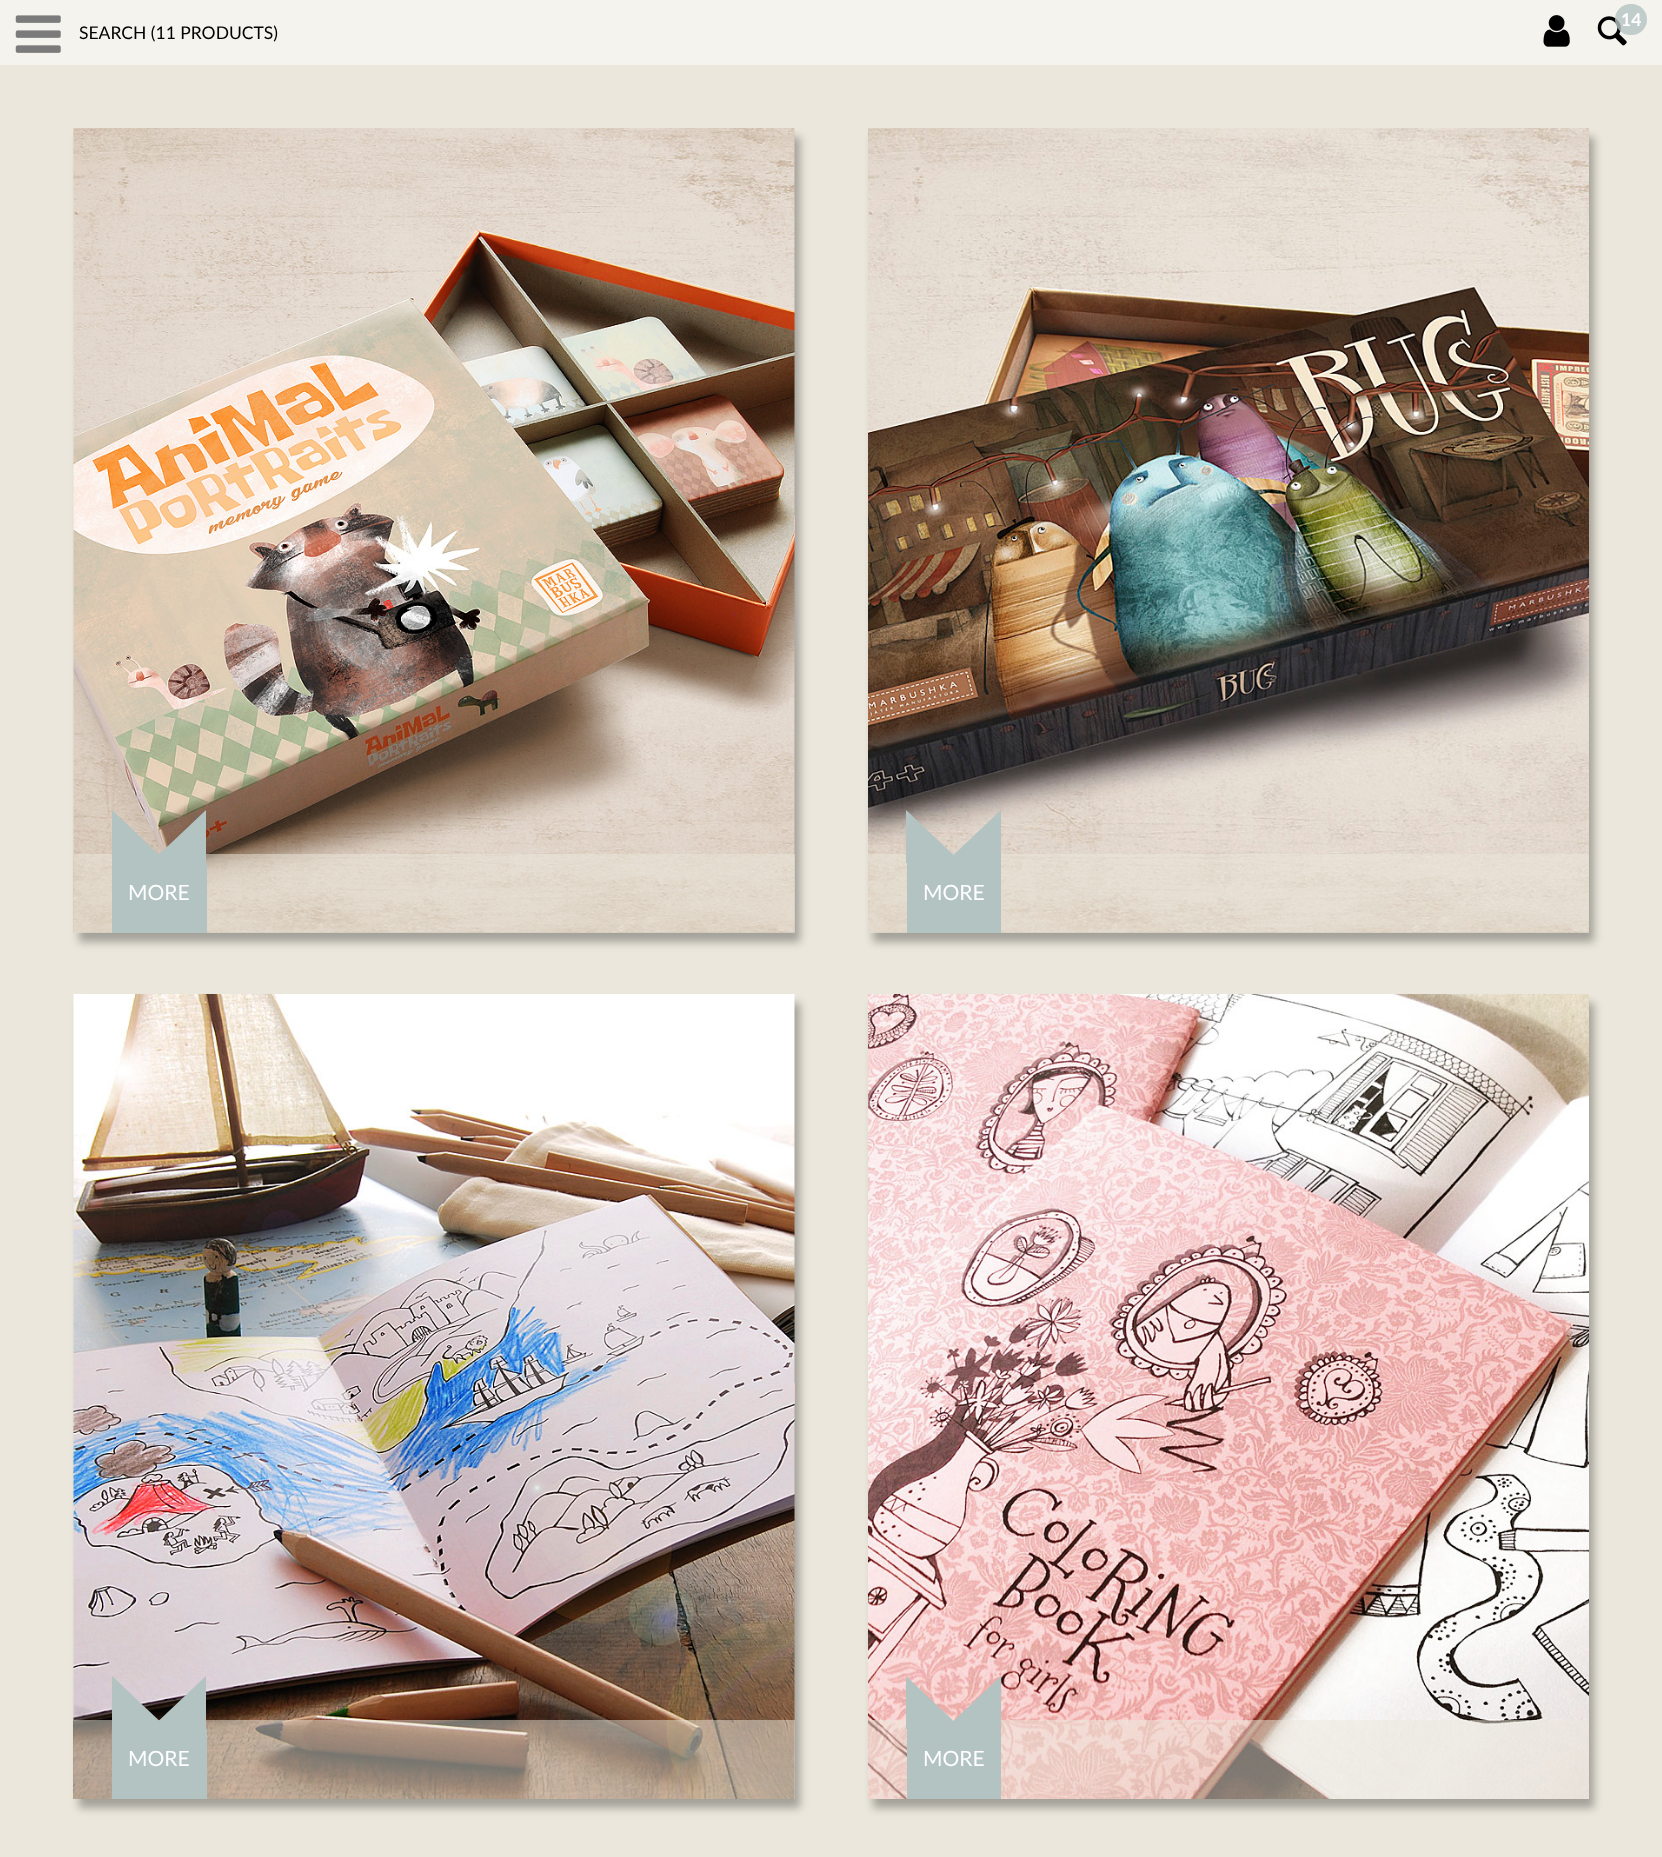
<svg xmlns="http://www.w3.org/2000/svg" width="1662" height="1857">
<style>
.a{font:17.5px Lato;fill:#000}
.b{font:bold 17.5px Lato;fill:#fff}
.c{font:21px Lato;fill:#fff}
</style>
<rect width="100%" height="100%" fill="#ebe7dc"/>
<path fill="#f5f3ee" d="M0 0h1662v65H0z"/>
<image href="1.png" x="15" y="15" width="46" height="38"/>
<image href="2.png" x="1543" y="15" width="27" height="32"/>
<image href="3.png" x="1597" y="16" width="30" height="30"/>
<rect fill="#b3c3c2cc" x="1615" y="4" width="32" height="31" rx="15.5"/>
<path fill="#0000004d" filter="blur(4.5px)" d="M79 137h721v805H79z"/>
<path fill="#ffc0cb" d="M794 516h1v21H794z"/>
<image href="4.png" x="73" y="128" width="722" height="805"/>
<path fill="#ebe7dc80" d="M74 854h721v79H74z"/>
<path fill="#b3c3c2" d="M112 863h95v70H112z"/>
<path fill="#b2c3c2" d="M168 863h-56v-53z"/>
<path fill="#b2c3c2" d="M206 863h-56l56-53z"/>
<path fill="#0000004d" filter="blur(4.5px)" d="M873 137h721v805H873z"/>
<image href="5.png" x="868" y="128" width="721" height="805"/>
<path fill="#ebe7dc80" d="M868 854h721v79H868z"/>
<path fill="#b3c3c2" d="M907 863h94v70H907z"/>
<path fill="#b2c3c2" d="M962 863h-56v-53z"/>
<path fill="#b2c3c2" d="M1001 863h-56l56-53z"/>
<path fill="#0000004d" filter="blur(4.5px)" d="M79 1003h721v805H79z"/>
<path fill="#ffc0cb" d="M794 1383h1v21H794z"/>
<image href="6.png" x="73" y="994" width="722" height="805"/>
<path fill="#ebe7dc80" d="M74 1720h721v79H74z"/>
<path fill="#b3c3c2" d="M112 1729h95v70H112z"/>
<path fill="#b2c3c2" d="M168 1729h-56v-53z"/>
<path fill="#b2c3c2" d="M206 1729h-56l56-53z"/>
<path fill="#0000004d" filter="blur(4.5px)" d="M873 1003h721v805H873z"/>
<image href="7.png" x="868" y="994" width="721" height="805"/>
<path fill="#ebe7dc80" d="M868 1720h721v79H868z"/>
<path fill="#b3c3c2" d="M907 1729h94v70H907z"/>
<path fill="#b2c3c2" d="M962 1729h-56v-53z"/>
<path fill="#b2c3c2" d="M1001 1729h-56l56-53z"/>
<text class="a" x="79" y="39">SEARCH (11 PRODUCTS)</text>
<text class="b" x="1621" y="26">14</text>
<text class="c" x="128" y="900">MORE</text>
<text class="c" x="923" y="900">MORE</text>
<text class="c" x="128" y="1766">MORE</text>
<text class="c" x="923" y="1766">MORE</text>
</svg>
